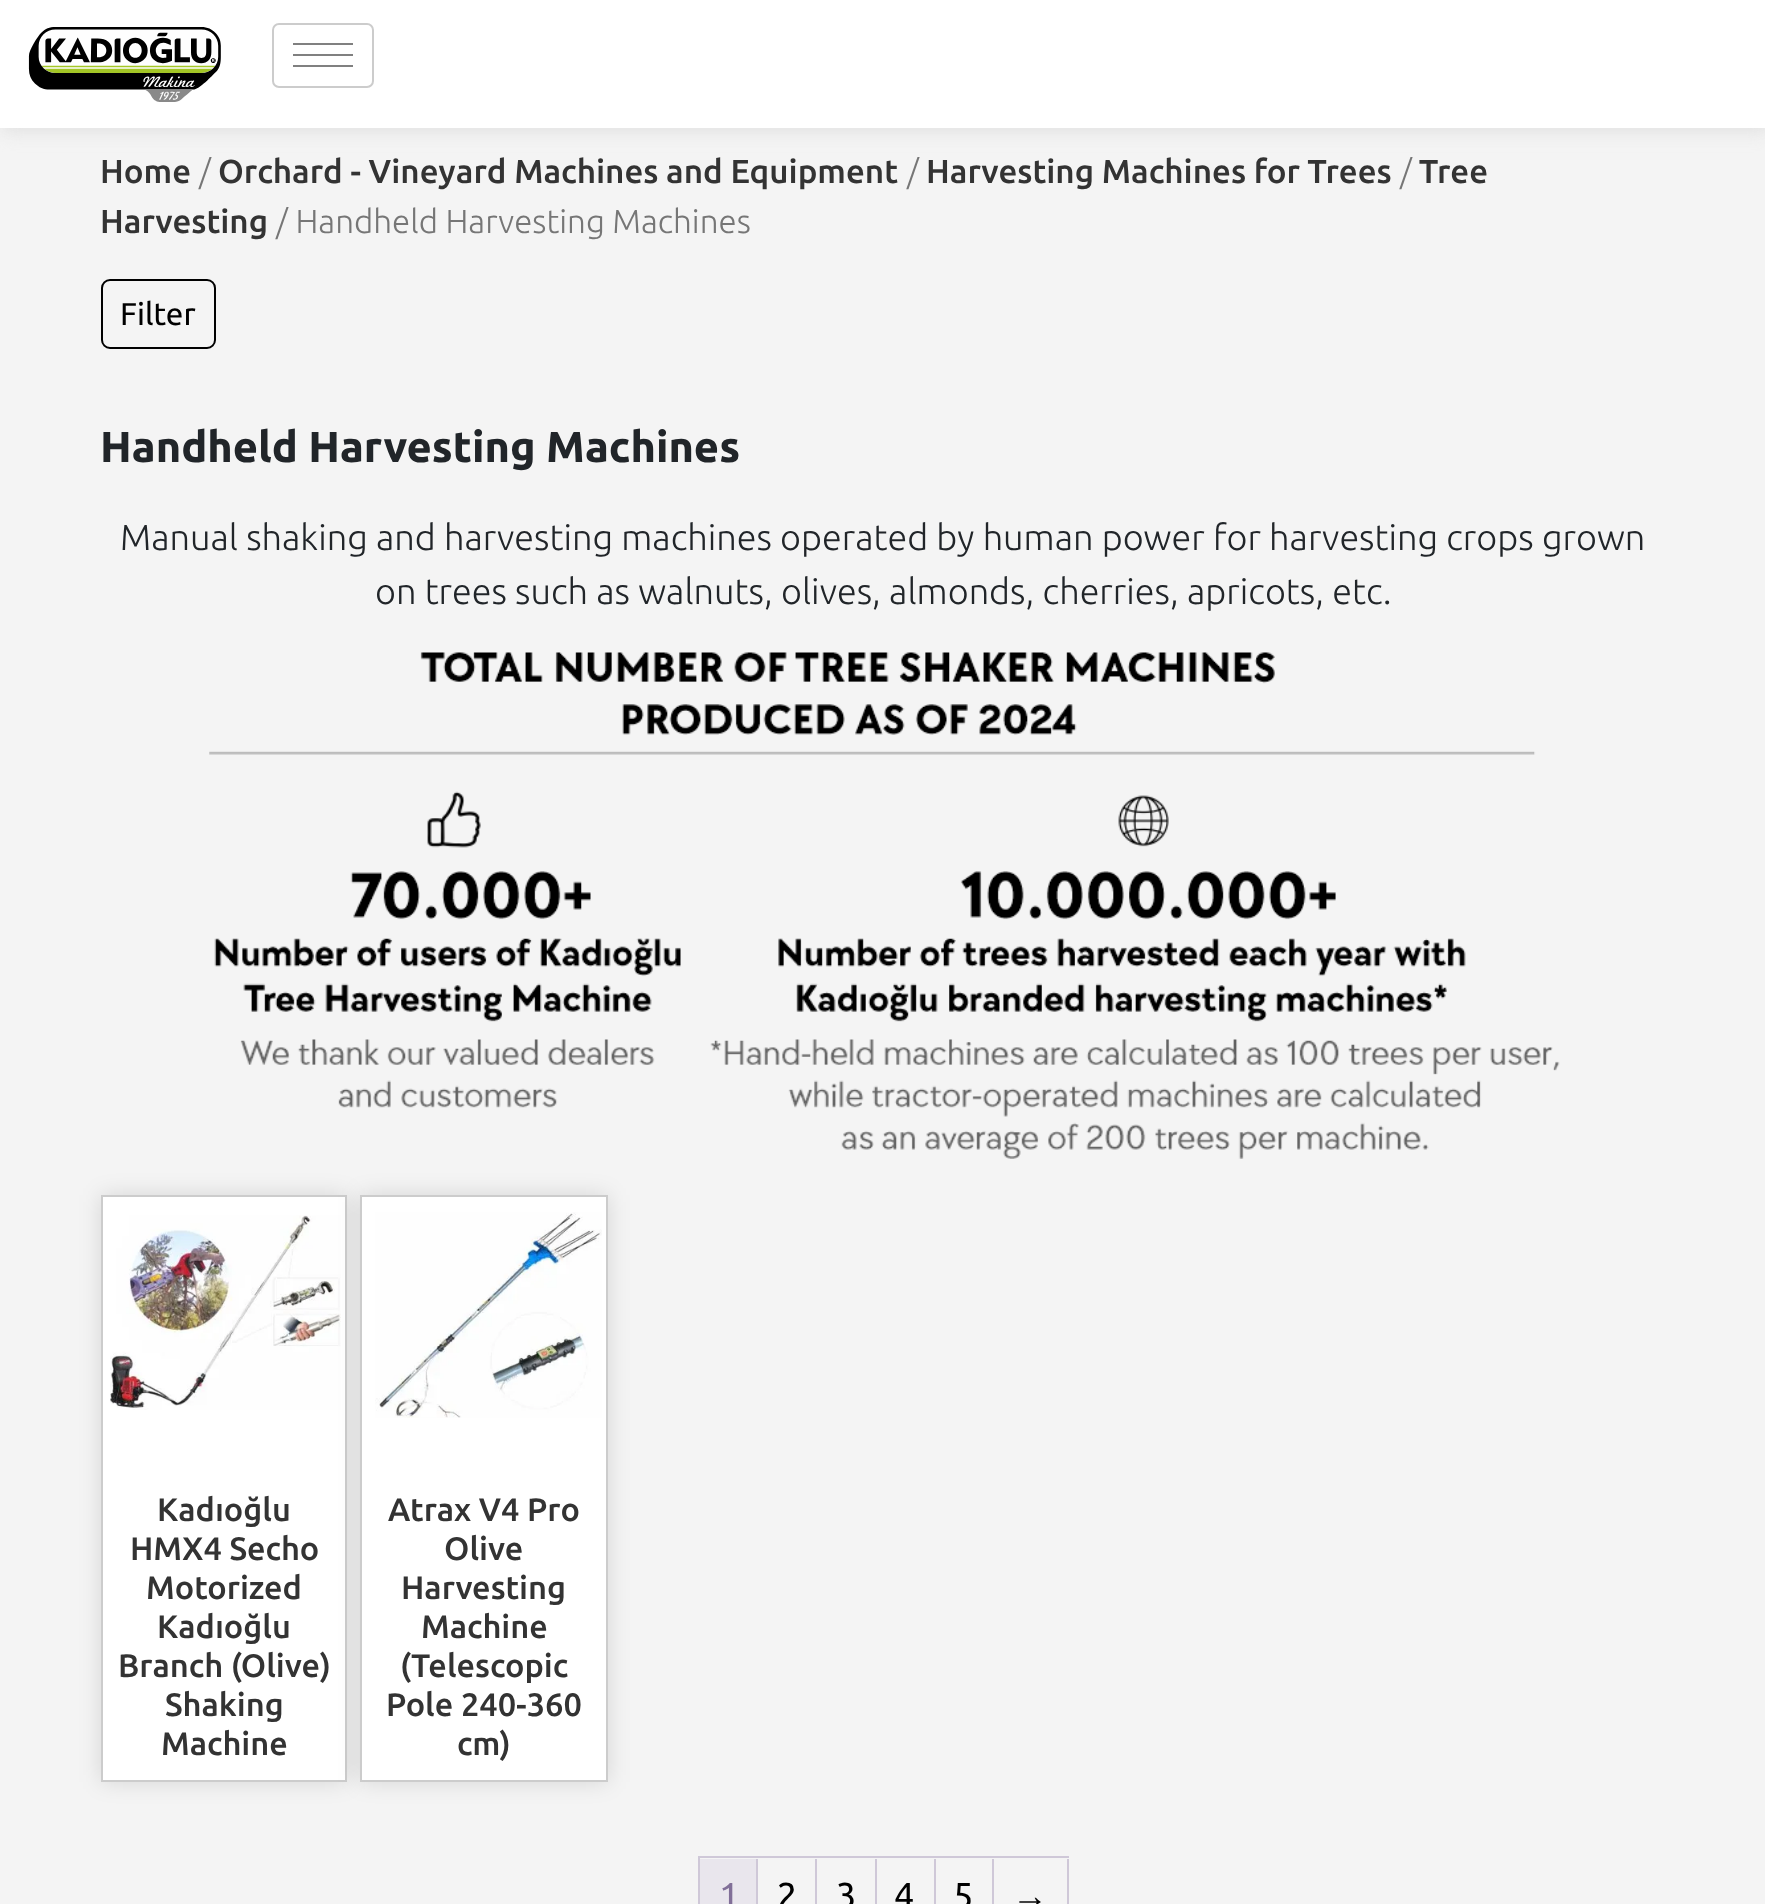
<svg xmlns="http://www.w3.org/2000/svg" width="1765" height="1904">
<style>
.a{font:500 33.1px Ubuntu;fill:#333}
.b{font:300 33.1px Ubuntu;fill:#767676}
.c{font:31.5px Ubuntu;fill:#000}
.d{font:bold 43.25px Ubuntu;fill:#212529}
.e{font:300 36px Ubuntu;fill:#212529}
.f{font:500 32.5px Ubuntu;fill:#333}
.g{font:36px Ubuntu;fill:#816f98}
.h{font:36px Ubuntu;fill:#000}
.i{font:36px Liberation Sans;fill:#000}
</style>
<rect width="100%" height="100%" fill="#f4f4f4"/>
<path fill="#dfdfdf" filter="blur(9px)" d="M2 2h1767v129H2z"/>
<path fill="#fff" d="M0 0h1765v128H0z"/>
<image href="1.png" x="28" y="27" width="193" height="75"/>
<rect fill="none" stroke="#ccc" stroke-width="2" x="273" y="24" width="100" height="63" rx="6"/>
<path fill="#808080" d="M293 43h60v2H293z"/>
<path fill="#808080" d="M293 54h60v2H293z"/>
<path fill="#808080" d="M293 65h60v2H293z"/>
<rect fill="none" stroke="#000" stroke-width="2" x="102" y="280" width="113" height="68" rx="8"/>
<image href="2.png" x="209" y="652" width="1351" height="507"/>
<path fill="#0000001f" filter="blur(11px)" d="M101 1195h246v587H101z"/>
<path fill="#fff" stroke="#ccc" stroke-width="2" d="M102 1196h244v585H102z"/>
<image href="3.png" x="110" y="1215" width="231" height="195"/>
<path fill="#0000001f" filter="blur(11px)" d="M360 1195h248v587H360z"/>
<path fill="#fff" stroke="#ccc" stroke-width="2" d="M361 1196h246v585H361z"/>
<image href="4.png" x="375" y="1212" width="227" height="206"/>
<path fill="#cfc8d8" d="M698 1856h371v2H698z"/>
<path fill="#cfc8d8" d="M698 1856h2v48H698z"/>
<path fill="#cfc8d8" d="M756 1859h2v45H756z"/>
<path fill="#e9e6ed" d="M700 1859h56v45H700z"/>
<path fill="#cfc8d8" d="M815 1859h2v45H815z"/>
<path fill="#cfc8d8" d="M875 1859h2v45H875z"/>
<path fill="#cfc8d8" d="M934 1859h2v45H934z"/>
<path fill="#cfc8d8" d="M992 1859h2v45H992z"/>
<path fill="#cfc8d8" d="M1067 1859h2v45H1067z"/>
<text class="a" x="100" y="183">Home</text>
<text class="b" x="199" y="183">/</text>
<text class="a" x="218" y="183">Orchard - Vineyard Machines and Equipment</text>
<text class="b" x="907" y="183">/</text>
<text class="a" x="926" y="183">Harvesting Machines for Trees</text>
<text class="b" x="1400" y="183">/</text>
<text class="a" x="1419" y="183">Tree</text>
<text class="a" x="100" y="233">Harvesting</text>
<text class="b" x="276" y="233">/ Handheld Harvesting Machines</text>
<text class="c" x="120" y="325">Filter</text>
<text class="d" x="100" y="462">Handheld Harvesting Machines</text>
<text class="e" x="120" y="550">Manual shaking and harvesting machines operated by human power for harvesting crops grown</text>
<text class="e" x="375" y="604">on trees such as walnuts, olives, almonds, cherries, apricots, etc.</text>
<text class="f" x="157" y="1521">Kadıoğlu</text>
<text class="f" x="130" y="1560">HMX4 Secho</text>
<text class="f" x="146" y="1599">Motorized</text>
<text class="f" x="157" y="1638">Kadıoğlu</text>
<text class="f" x="118" y="1677">Branch (Olive)</text>
<text class="f" x="165" y="1716">Shaking</text>
<text class="f" x="161" y="1755">Machine</text>
<text class="f" x="388" y="1521">Atrax V4 Pro</text>
<text class="f" x="444" y="1560">Olive</text>
<text class="f" x="401" y="1599">Harvesting</text>
<text class="f" x="421" y="1638">Machine</text>
<text class="f" x="400" y="1677">(Telescopic</text>
<text class="f" x="386" y="1716">Pole 240-360</text>
<text class="f" x="457" y="1755">cm)</text>
<text class="g" x="719" y="1908">1</text>
<text class="h" x="777" y="1908">2</text>
<text class="h" x="836" y="1908">3</text>
<text class="h" x="894" y="1908">4</text>
<text class="h" x="953" y="1908">5</text>
<text class="i" x="1012" y="1908">→</text>
</svg>
